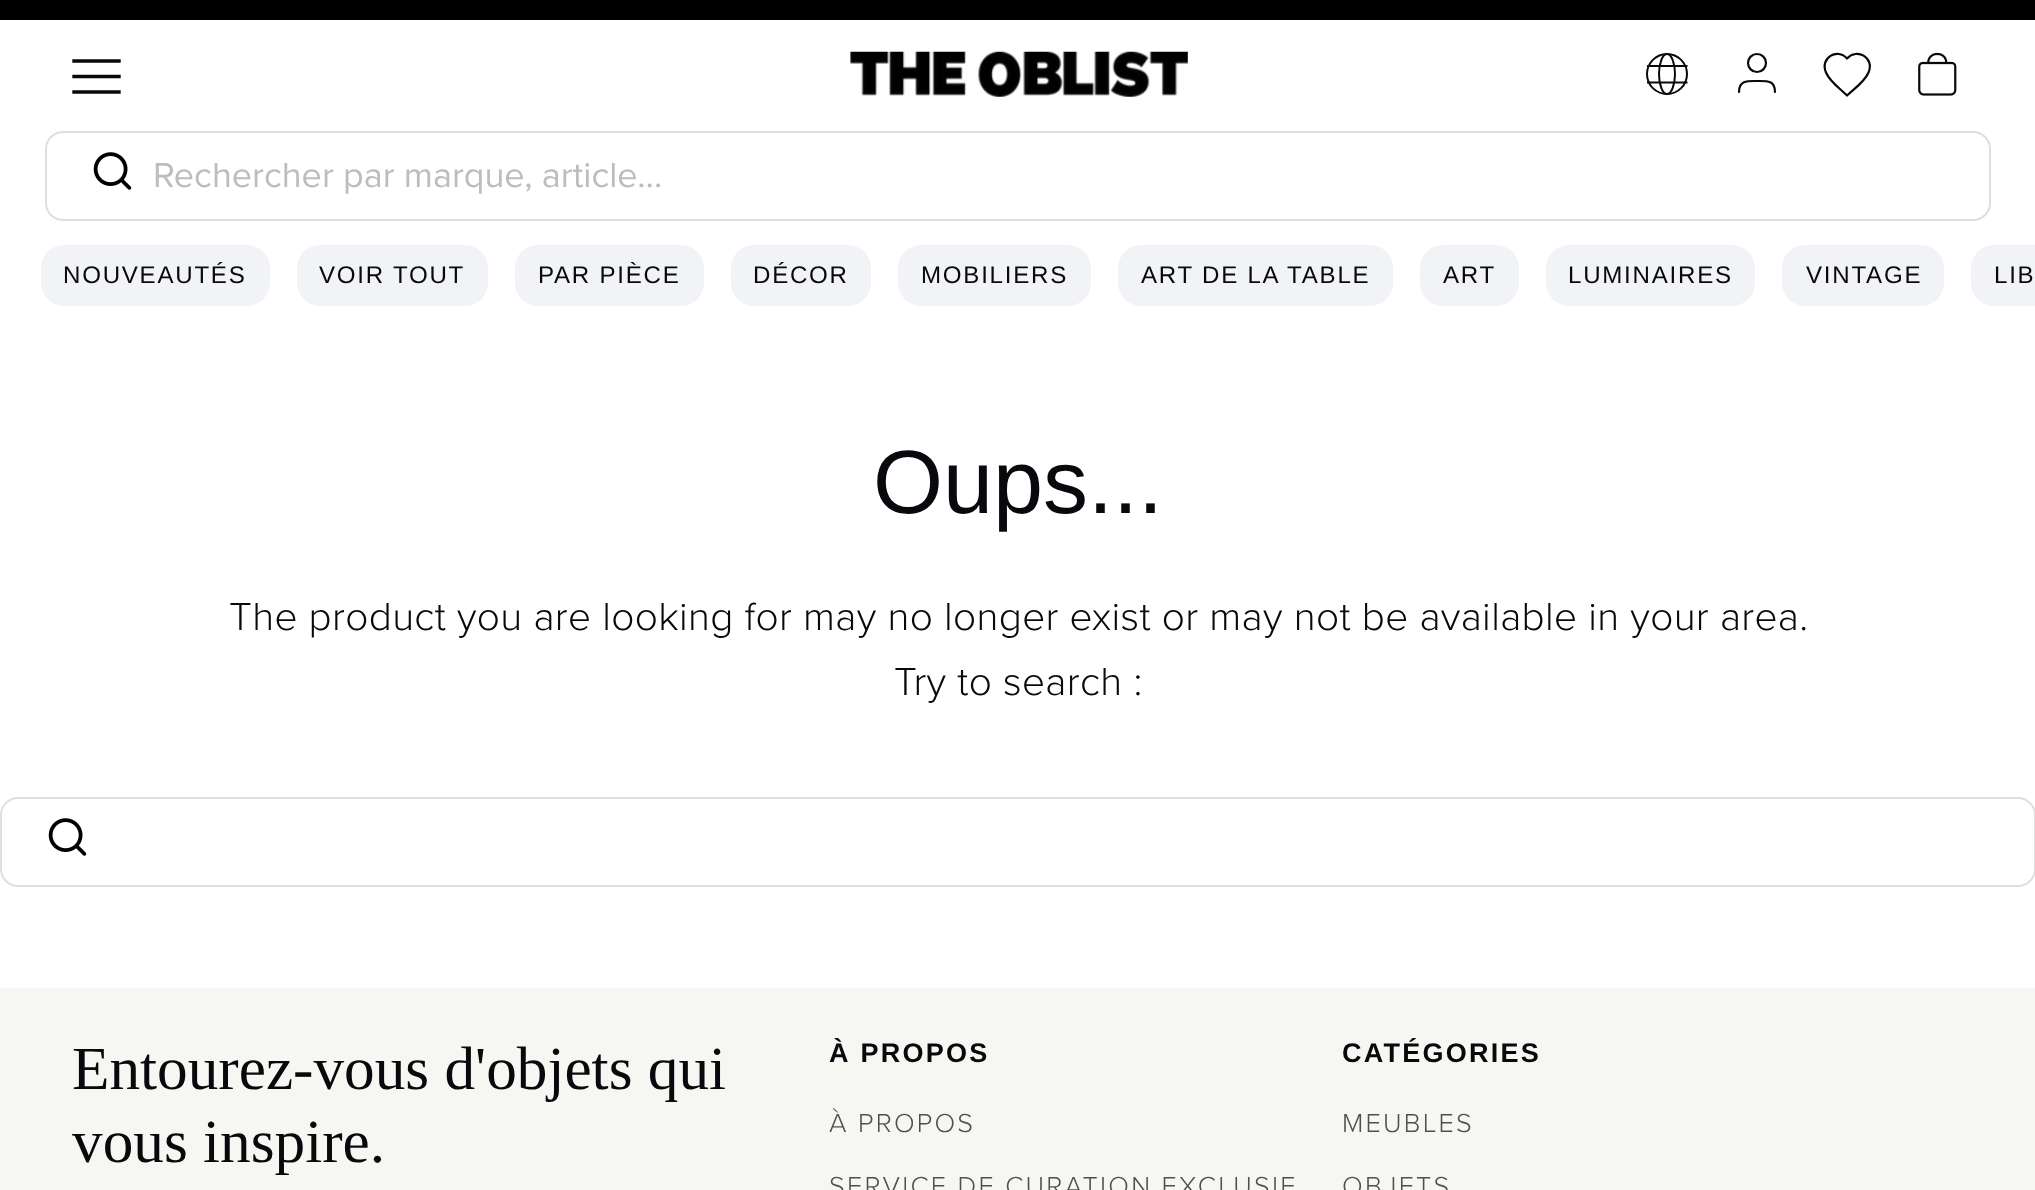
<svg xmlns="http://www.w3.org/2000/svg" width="2035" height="1190">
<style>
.a{font:36px Proxima Nova;fill:#bdbdbd}
.b{font:24.1px Liberation Sans;letter-spacing:1.75px;fill:#08080d}
.c{font:90px Liberation Sans;fill:#08080d}
.d{font:300 40.5px Proxima Nova;letter-spacing:0.35px;fill:#08080d}
.e{font:61.25px Liberation Serif;fill:#08080d}
.f{font:bold 27px Liberation Sans;letter-spacing:2.25px;fill:#08080d}
.g{font:300 27px Proxima Nova;letter-spacing:2.25px;fill:#4f4f52}
</style>
<rect width="100%" height="100%" fill="#fff"/>
<path fill="#000" d="M0 0h2035v20H0z"/>
<path fill="none" stroke="#08080d" stroke-width="3.4" stroke-linecap="square" d="M74 61h45m-45 15.5h45m-45 15.5h45"/>
<image href="1.png" x="850" y="51" width="338" height="46"/>
<circle fill="none" stroke="#08080d" stroke-width="2" cx="1667" cy="74" r="20"/>
<ellipse fill="none" stroke="#08080d" stroke-width="2" cx="1667" cy="74" rx="8" ry="20"/>
<path fill="none" stroke="#08080d" stroke-width="2" d="M1647 66h40.5m-40.5 16.5h40.5"/>
<path fill="none" stroke="#08080d" stroke-width="2.2" stroke-linecap="round" stroke-linejoin="round" d="M1775 92c0-12-8.5-11-18-11c-9 0-18-1-18 11"/>
<circle fill="none" stroke="#08080d" stroke-width="2.2" cx="1757" cy="63" r="9"/>
<path fill="none" stroke="#08080d" stroke-width="2.2" stroke-linejoin="round" d="M1847 95.5c-7-7-17-13.5-21-23c-6.5-14.5 11.5-25 21-14c10-11 28-.5 21.5 14c-4 9.5-14 16-21.5 23z"/>
<image href="2.png" x="1918" y="52" width="39" height="44"/>
<rect fill="none" stroke="#dfdfdf" stroke-width="2" x="46" y="132" width="1944" height="88" rx="17"/>
<image href="3.png" x="93" y="152" width="39" height="38"/>
<rect fill="#f2f3f6" x="41" y="245" width="229" height="61" rx="23"/>
<rect fill="#f2f3f6" x="297" y="245" width="191" height="61" rx="23"/>
<rect fill="#f2f3f6" x="515" y="245" width="189" height="61" rx="23"/>
<rect fill="#f2f3f6" x="731" y="245" width="140" height="61" rx="23"/>
<rect fill="#f2f3f6" x="898" y="245" width="193" height="61" rx="23"/>
<rect fill="#f2f3f6" x="1118" y="245" width="275" height="61" rx="23"/>
<rect fill="#f2f3f6" x="1420" y="245" width="99" height="61" rx="23"/>
<rect fill="#f2f3f6" x="1546" y="245" width="209" height="61" rx="23"/>
<rect fill="#f2f3f6" x="1782" y="245" width="162" height="61" rx="23"/>
<path fill="#f2f3f6" d="M1994 245h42v61h-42c-12.5 0-23-10.5-23-23v-15c0-12.5 10.5-23 23-23z"/>
<rect fill="none" stroke="#dfdfdf" stroke-width="2" x="1" y="798" width="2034" height="88" rx="17"/>
<image href="3.png" x="48" y="818" width="39" height="38"/>
<path fill="#f6f6f2" d="M0 988h2035v202H0z"/>
<text class="a" x="153" y="187">Rechercher par marque, article...</text>
<text class="b" x="63" y="283">NOUVEAUTÉS</text>
<text class="b" x="319" y="283">VOIR TOUT</text>
<text class="b" x="538" y="283">PAR PIÈCE</text>
<text class="b" x="753" y="283">DÉCOR</text>
<text class="b" x="921" y="283">MOBILIERS</text>
<text class="b" x="1141" y="283">ART DE LA TABLE</text>
<text class="b" x="1443" y="283">ART</text>
<text class="b" x="1568" y="283">LUMINAIRES</text>
<text class="b" x="1806" y="283">VINTAGE</text>
<text class="b" x="1994" y="283">LIB</text>
<text class="c" x="873" y="513">Oups...</text>
<text class="d" x="229" y="630">The product you are looking for may no longer exist or may not be available in your area.</text>
<text class="d" x="894" y="695">Try to search :</text>
<text class="e" x="72" y="1089">Entourez-vous d'objets qui</text>
<text class="e" x="72" y="1162">vous inspire.</text>
<text class="f" x="829" y="1062">À PROPOS</text>
<text class="g" x="829" y="1132">À PROPOS</text>
<text class="g" x="829" y="1195">SERVICE DE CURATION EXCLUSIF</text>
<text class="f" x="1342" y="1062">CATÉGORIES</text>
<text class="g" x="1342" y="1132">MEUBLES</text>
<text class="g" x="1342" y="1195">OBJETS</text>
</svg>
